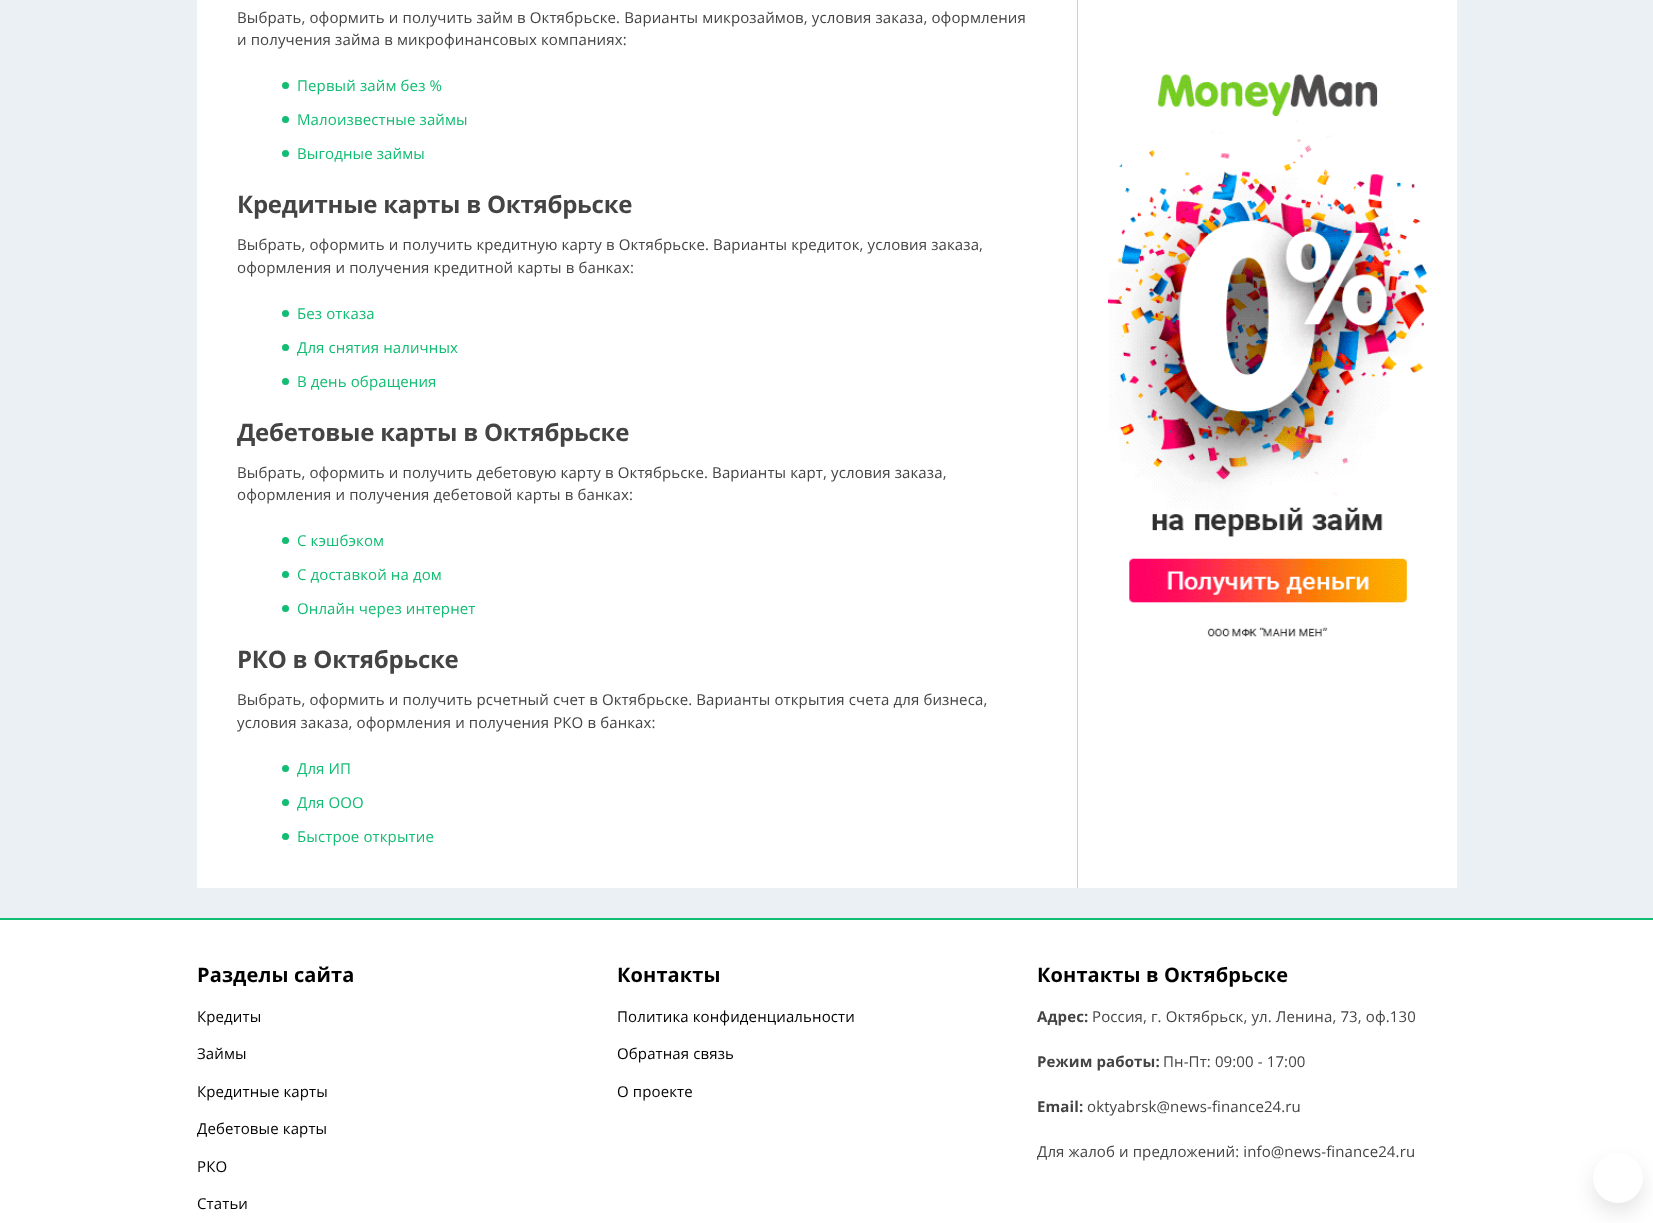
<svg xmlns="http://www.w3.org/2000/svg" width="1653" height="1223">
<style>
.a{font:15px Open Sans;letter-spacing:0.12px;fill:#444}
.b{font:15px Open Sans;letter-spacing:0.12px;fill:#12bc72}
.c{font:bold 24px Open Sans;letter-spacing:-0.25px;fill:#444}
.d{font:bold 20px Open Sans;letter-spacing:0.12px;fill:#000}
.e{font:15px Open Sans;letter-spacing:0.12px;fill:#000}
.f{font:bold 15px Open Sans;letter-spacing:0.12px;fill:#444}
</style>
<rect width="100%" height="100%" fill="#ebf0f4"/>
<path fill="#fff" d="M197 0h1260v888H197z"/>
<circle fill="#12bc72" cx="285.5" cy="85.5" r="3.5"/>
<circle fill="#12bc72" cx="285.5" cy="119.5" r="3.5"/>
<circle fill="#12bc72" cx="285.5" cy="153.5" r="3.5"/>
<circle fill="#12bc72" cx="285.5" cy="313.5" r="3.5"/>
<circle fill="#12bc72" cx="285.5" cy="347.5" r="3.5"/>
<circle fill="#12bc72" cx="285.5" cy="381.5" r="3.5"/>
<circle fill="#12bc72" cx="285.5" cy="540.5" r="3.5"/>
<circle fill="#12bc72" cx="285.5" cy="574.5" r="3.5"/>
<circle fill="#12bc72" cx="285.5" cy="608.5" r="3.5"/>
<circle fill="#12bc72" cx="285.5" cy="768.5" r="3.5"/>
<circle fill="#12bc72" cx="285.5" cy="802.5" r="3.5"/>
<circle fill="#12bc72" cx="285.5" cy="836.5" r="3.5"/>
<path fill="#cfcece" d="M1077 0h1v888H1077z"/>
<image href="1.png" x="1108" y="74" width="319" height="563"/>
<path fill="#fff" d="M0 920h1653v303H0z"/>
<path fill="#12bc72" d="M0 918h1653v2H0z"/>
<rect fill="#0000001a" filter="blur(10px)" x="1593" y="1163" width="50" height="50" rx="25"/>
<circle fill="#fff" cx="1618" cy="1178" r="25"/>
<text class="a" x="237" y="23">Выбрать, оформить и получить займ в Октябрьске. Варианты микрозаймов, условия заказа, оформления</text>
<text class="a" x="237" y="45">и получения займа в микрофинансовых компаниях:</text>
<text class="b" x="297" y="91">Первый займ без %</text>
<text class="b" x="297" y="125">Малоизвестные займы</text>
<text class="b" x="297" y="159">Выгодные займы</text>
<text class="c" x="237" y="213">Кредитные карты в Октябрьске</text>
<text class="a" x="237" y="250">Выбрать, оформить и получить кредитную карту в Октябрьске. Варианты кредиток, условия заказа,</text>
<text class="a" x="237" y="273">оформления и получения кредитной карты в банках:</text>
<text class="b" x="297" y="319">Без отказа</text>
<text class="b" x="297" y="353">Для снятия наличных</text>
<text class="b" x="297" y="387">В день обращения</text>
<text class="c" x="237" y="441">Дебетовые карты в Октябрьске</text>
<text class="a" x="237" y="478">Выбрать, оформить и получить дебетовую карту в Октябрьске. Варианты карт, условия заказа,</text>
<text class="a" x="237" y="500">оформления и получения дебетовой карты в банках:</text>
<text class="b" x="297" y="546">С кэшбэком</text>
<text class="b" x="297" y="580">С доставкой на дом</text>
<text class="b" x="297" y="614">Онлайн через интернет</text>
<text class="c" x="237" y="668">РКО в Октябрьске</text>
<text class="a" x="237" y="705">Выбрать, оформить и получить рсчетный счет в Октябрьске. Варианты открытия счета для бизнеса,</text>
<text class="a" x="237" y="728">условия заказа, оформления и получения РКО в банках:</text>
<text class="b" x="297" y="774">Для ИП</text>
<text class="b" x="297" y="808">Для ООО</text>
<text class="b" x="297" y="842">Быстрое открытие</text>
<text class="d" x="197" y="982">Разделы сайта</text>
<text class="e" x="197" y="1022">Кредиты</text>
<text class="e" x="197" y="1059">Займы</text>
<text class="e" x="197" y="1097">Кредитные карты</text>
<text class="e" x="197" y="1134">Дебетовые карты</text>
<text class="e" x="197" y="1172">РКО</text>
<text class="e" x="197" y="1209">Статьи</text>
<text class="d" x="617" y="982">Контакты</text>
<text class="e" x="617" y="1022">Политика конфиденциальности</text>
<text class="e" x="617" y="1059">Обратная связь</text>
<text class="e" x="617" y="1097">О проекте</text>
<text class="d" x="1037" y="982">Контакты в Октябрьске</text>
<text class="f" x="1037" y="1022">Адрес:</text>
<text class="a" x="1092" y="1022">Россия, г. Октябрьск, ул. Ленина, 73, оф.130</text>
<text class="f" x="1037" y="1067">Режим работы:</text>
<text class="a" x="1163" y="1067">Пн-Пт: 09:00 - 17:00</text>
<text class="f" x="1037" y="1112">Email:</text>
<text class="a" x="1087" y="1112">oktyabrsk@news-finance24.ru</text>
<text class="a" x="1037" y="1157">Для жалоб и предложений: info@news-finance24.ru</text>
</svg>
